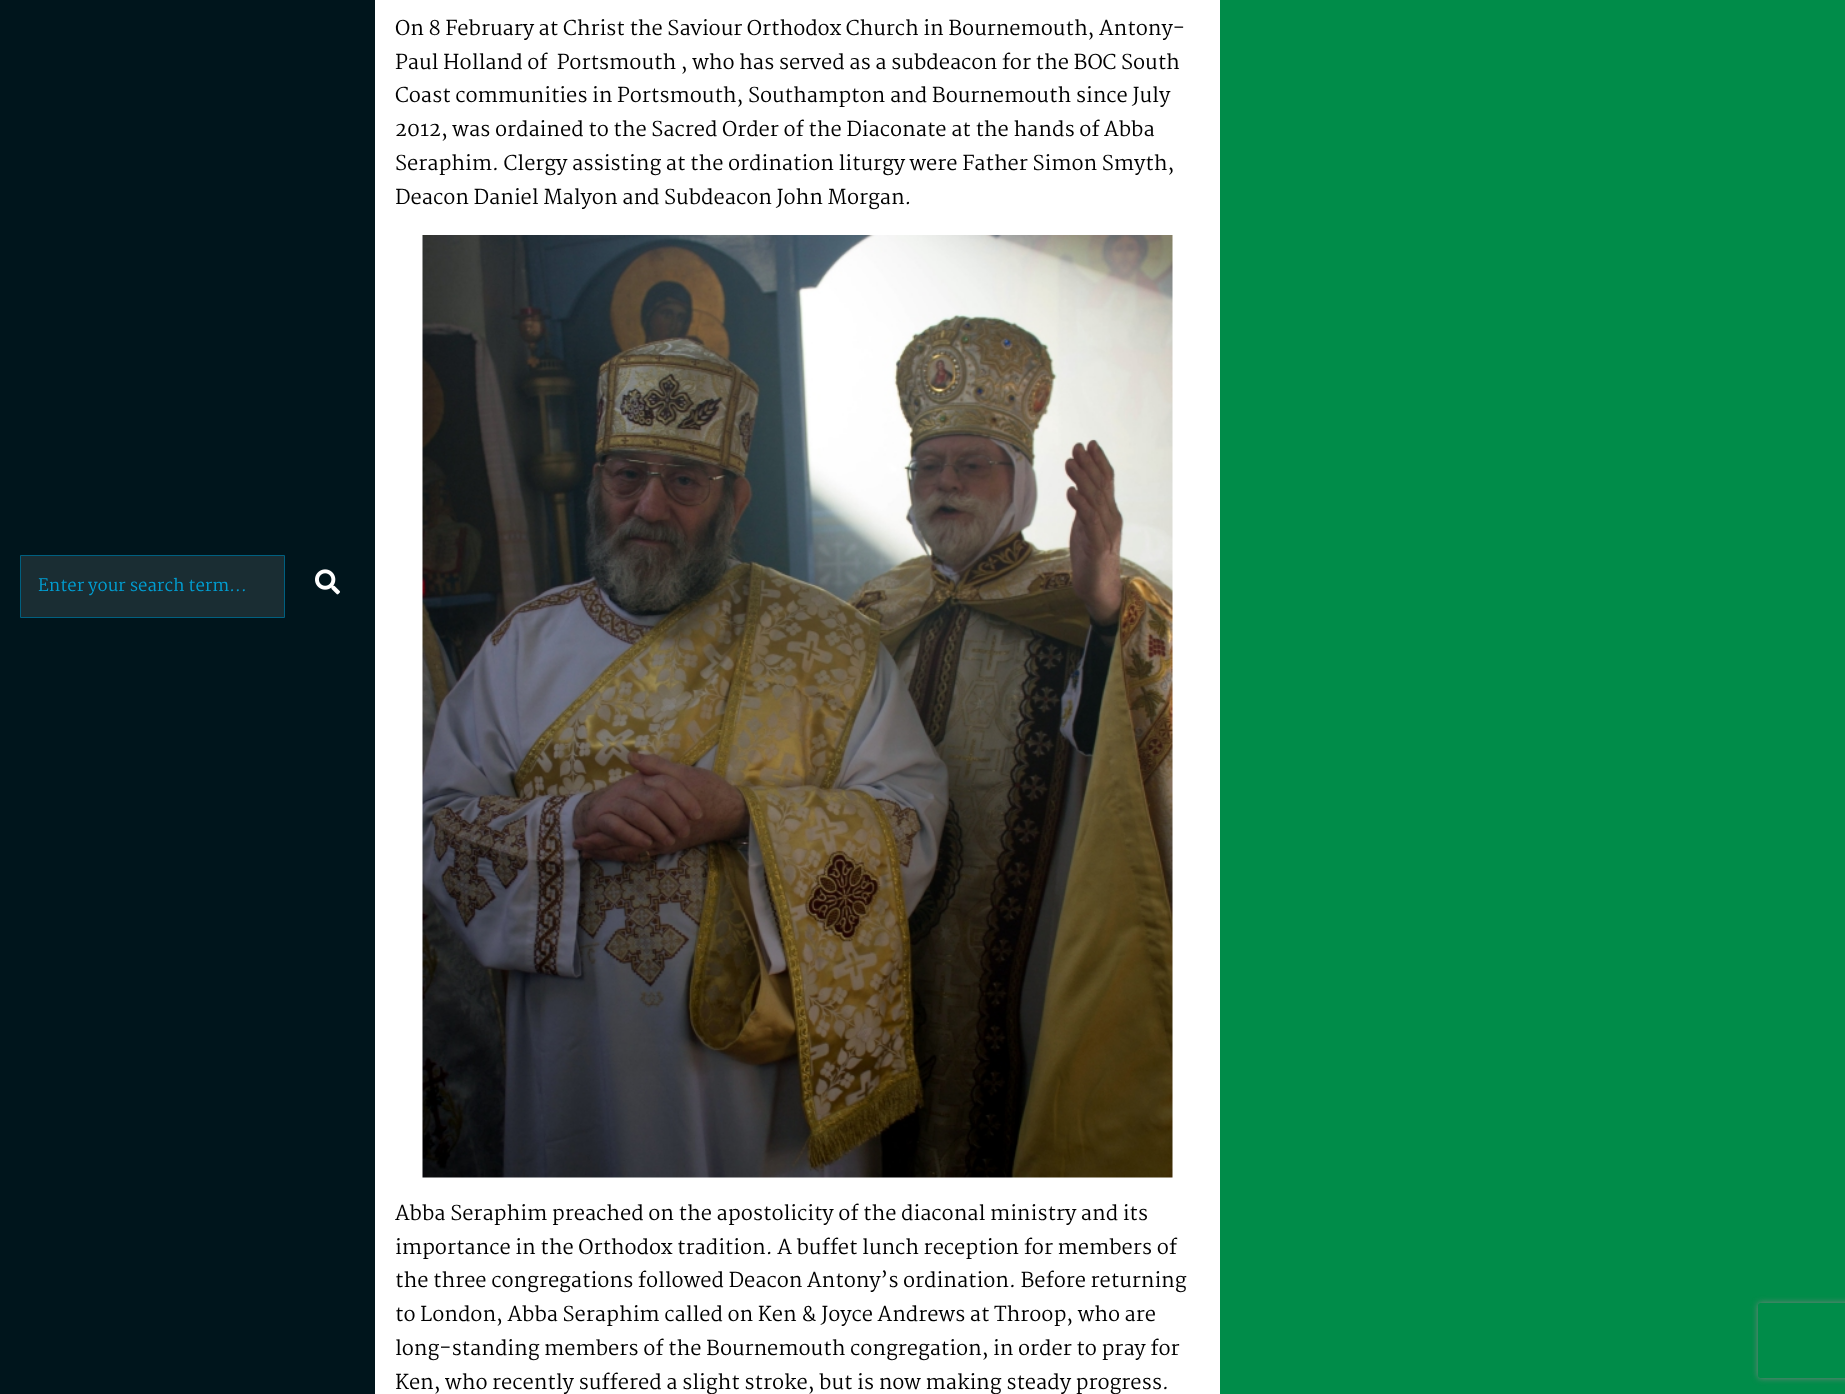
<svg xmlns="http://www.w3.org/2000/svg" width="1845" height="1394">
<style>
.a{font:16.75px Martel;fill:#009ed2}
.b{font:20px Martel;fill:#000}
</style>
<defs>
<clipPath id="clip1"><path d="M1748 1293h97v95h-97zm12.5 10h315c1.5 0 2.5 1 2.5 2.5v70c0 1.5-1 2.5-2.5 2.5h-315c-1.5 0-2.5-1-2.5-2.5v-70c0-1.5 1-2.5 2.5-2.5z" clip-rule="evenodd"/></clipPath>
</defs>
<rect width="100%" height="100%" fill="#fff"/>
<path fill="#00151c" d="M0 0h375v1394H0z"/>
<path fill="#1a2d33" stroke="#006080" d="M20.5 555.5h264v62H20.5z"/>
<image href="1.png" x="315" y="569" width="25" height="26"/>
<image href="2.png" x="422" y="235" width="751" height="943"/>
<path fill="#008c49" d="M1220 0h625v1394H1220z"/>
<g clip-path="url(#clip1)">
<rect fill="#808080" filter="blur(3px)" x="1758" y="1303" width="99" height="75" rx="2.5"/>
</g>
<text class="a" x="38" y="591">Enter your search term...</text>
<text class="b" x="395" y="35">On 8 February at Christ the Saviour Orthodox Church in Bournemouth, Antony-</text>
<text class="b" xml:space="preserve" x="395" y="69">Paul Holland of  Portsmouth , who has served as a subdeacon for the BOC South</text>
<text class="b" x="395" y="102">Coast communities in Portsmouth, Southampton and Bournemouth since July</text>
<text class="b" x="395" y="136">2012, was ordained to the Sacred Order of the Diaconate at the hands of Abba</text>
<text class="b" x="395" y="170">Seraphim. Clergy assisting at the ordination liturgy were Father Simon Smyth,</text>
<text class="b" x="395" y="204">Deacon Daniel Malyon and Subdeacon John Morgan.</text>
<text class="b" x="395" y="1220">Abba Seraphim preached on the apostolicity of the diaconal ministry and its</text>
<text class="b" x="395" y="1254">importance in the Orthodox tradition. A buffet lunch reception for members of</text>
<text class="b" x="395" y="1287">the three congregations followed Deacon Antony’s ordination. Before returning</text>
<text class="b" x="395" y="1321">to London, Abba Seraphim called on Ken &amp; Joyce Andrews at Throop, who are</text>
<text class="b" x="395" y="1355">long-standing members of the Bournemouth congregation, in order to pray for</text>
<text class="b" x="395" y="1389">Ken, who recently suffered a slight stroke, but is now making steady progress.</text>
</svg>
